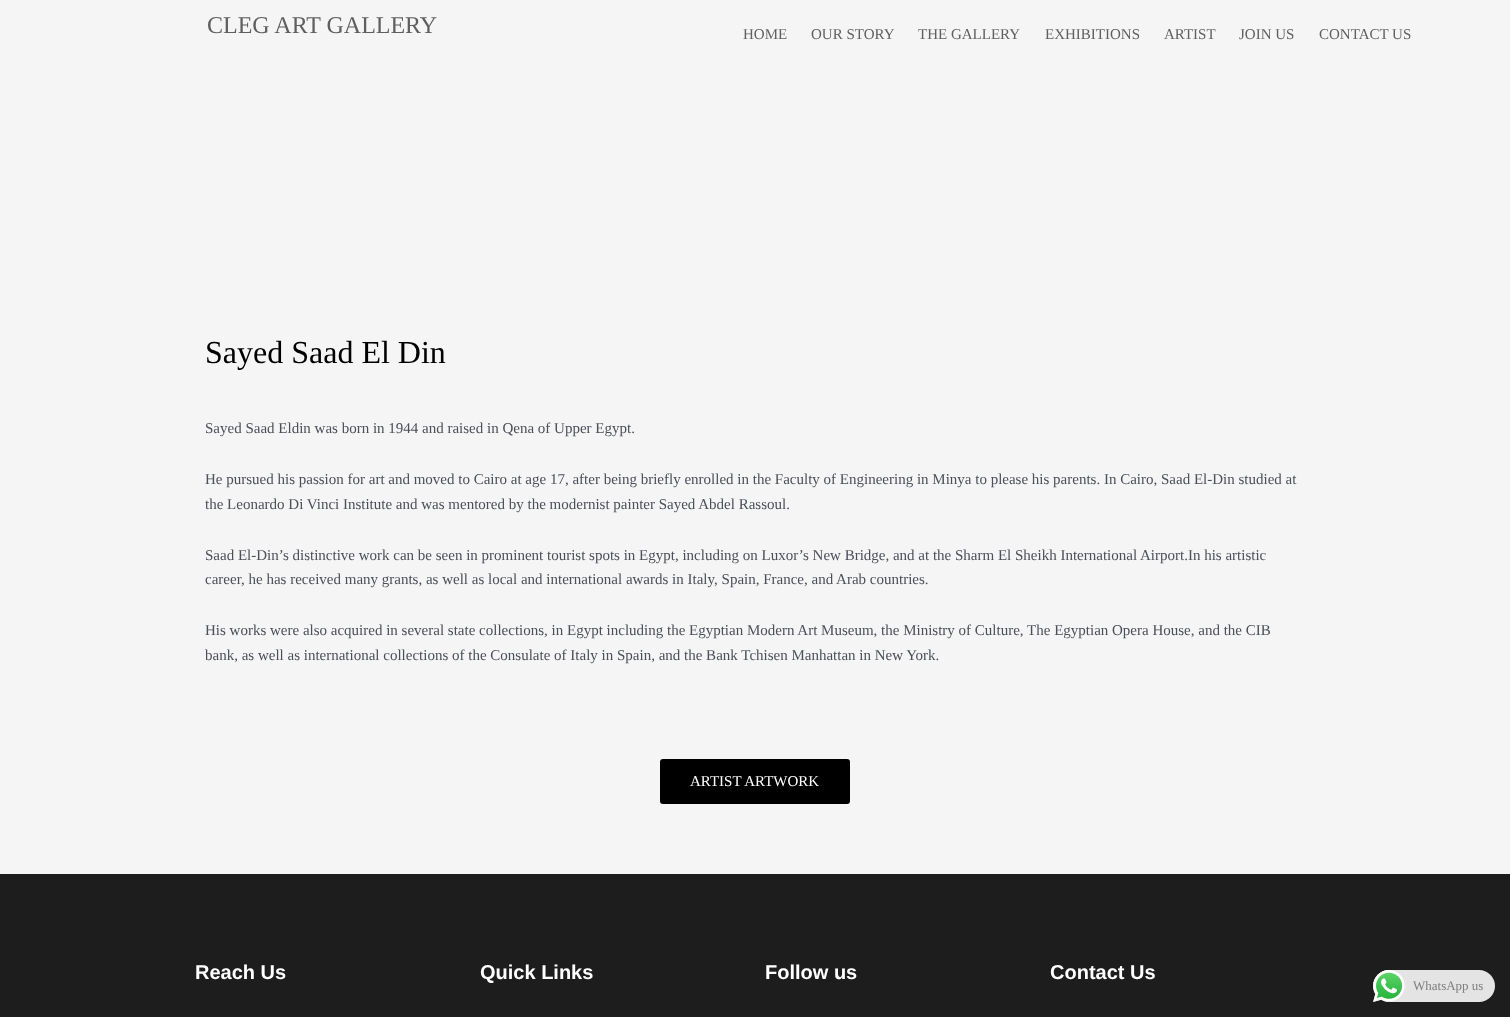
<svg xmlns="http://www.w3.org/2000/svg" width="1510" height="1017">
<style>
.a{font:24px Liberation Serif;fill:#5f5f5f}
.b{font:15px Liberation Serif;fill:#5f5f5f}
.c{font:32px Liberation Serif;fill:#000}
.d{font:15px Liberation Serif;fill:#4b4f58}
.e{font:15px Liberation Serif;fill:#fff}
.f{font:bold 20px Liberation Sans;fill:#fff}
.g{font:13px Liberation Serif;fill:#7f7d7d}
</style>
<rect width="100%" height="100%" fill="#f5f5f5"/>
<rect fill="#000" x="660" y="759" width="190" height="45" rx="3"/>
<path fill="#1d1d1d" d="M0 874h1510v143H0z"/>
<rect fill="#e4e4e4" x="1373" y="970" width="122" height="32" rx="16"/>
<image href="1.png" x="1373" y="970" width="32" height="32"/>
<text class="a" x="207" y="33">CLEG ART GALLERY</text>
<text class="b" x="743" y="39">HOME</text>
<text class="b" x="811" y="39">OUR STORY</text>
<text class="b" x="918" y="39">THE GALLERY</text>
<text class="b" x="1045" y="39">EXHIBITIONS</text>
<text class="b" x="1164" y="39">ARTIST</text>
<text class="b" x="1239" y="39">JOIN US</text>
<text class="b" x="1319" y="39">CONTACT US</text>
<text class="c" x="205" y="363">Sayed Saad El Din</text>
<text class="d" x="205" y="433">Sayed Saad Eldin was born in 1944 and raised in Qena of Upper Egypt.</text>
<text class="d" x="205" y="484">He pursued his passion for art and moved to Cairo at age 17, after being briefly enrolled in the Faculty of Engineering in Minya to please his parents. In Cairo, Saad El-Din studied at</text>
<text class="d" x="205" y="509">the Leonardo Di Vinci Institute and was mentored by the modernist painter Sayed Abdel Rassoul.</text>
<text class="d" x="205" y="560">Saad El-Din’s distinctive work can be seen in prominent tourist spots in Egypt, including on Luxor’s New Bridge, and at the Sharm El Sheikh International Airport.In his artistic</text>
<text class="d" x="205" y="584">career, he has received many grants, as well as local and international awards in Italy, Spain, France, and Arab countries.</text>
<text class="d" x="205" y="635">His works were also acquired in several state collections, in Egypt including the Egyptian Modern Art Museum, the Ministry of Culture, The Egyptian Opera House, and the CIB</text>
<text class="d" x="205" y="660">bank, as well as international collections of the Consulate of Italy in Spain, and the Bank Tchisen Manhattan in New York.</text>
<text class="e" x="690" y="786">ARTIST ARTWORK</text>
<text class="f" x="195" y="979">Reach Us</text>
<text class="f" x="480" y="979">Quick Links</text>
<text class="f" x="765" y="979">Follow us</text>
<text class="f" x="1050" y="979">Contact Us</text>
<text class="g" x="1413" y="990">WhatsApp us</text>
</svg>
